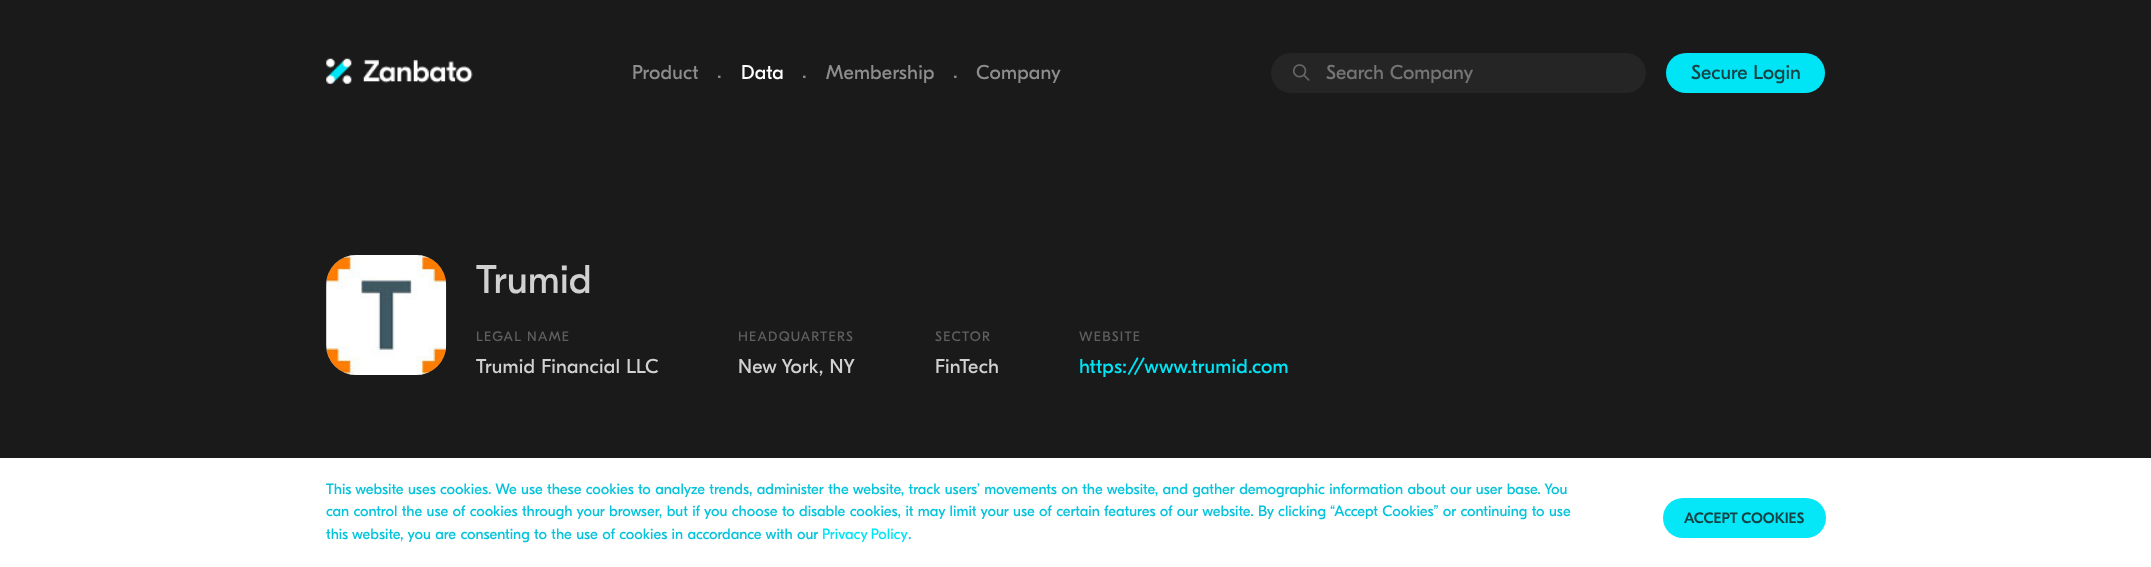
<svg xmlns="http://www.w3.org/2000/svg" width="2151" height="567">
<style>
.a{font:20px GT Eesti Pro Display;letter-spacing:0.2px;fill:#8d8d8d}
.b{font:20px GT Eesti Pro Display;fill:#8d8d8d}
.c{font:20px GT Eesti Pro Display;letter-spacing:0.2px;fill:#fff}
.d{font:20px GT Eesti Pro Display;fill:#757575}
.e{font:20px GT Eesti Pro Display;fill:#154346}
.f{font:40px GT Eesti Pro Display;fill:#d1d1d1}
.g{font:13.75px GT Eesti Pro Display;letter-spacing:1.25px;fill:#5f5f5f}
.h{font:20px GT Eesti Pro Display;letter-spacing:0.2px;fill:#d1d1d1}
.i{font:20px GT Eesti Pro Display;letter-spacing:0.2px;fill:#00e5f6}
.j{font:15px GT Eesti Pro Display;fill:#05c3da}
.k{font:15px GT Eesti Pro Display;fill:#00e5f6}
.l{font:500 15px GT Eesti Pro Display;fill:#154346}
</style>
<rect width="100%" height="100%" fill="#1a1a1a"/>
<image href="1.png" x="326" y="58" width="147" height="26"/>
<rect fill="#252525" x="1271" y="53" width="375" height="40" rx="20"/>
<image href="2.png" x="1293" y="64" width="17" height="17"/>
<rect fill="#00e5f6" x="1666" y="53" width="159" height="40" rx="20"/>
<rect fill="#949494" x="326" y="255" width="120" height="120" rx="30"/>
<image href="3.png" x="326" y="255" width="121" height="120"/>
<path fill="#fff" d="M0 458h2151v109H0z"/>
<rect fill="#05e6f6" x="1663" y="498" width="163" height="40" rx="20"/>
<text class="a" x="632" y="79">Product</text>
<text class="b" x="717" y="78">.</text>
<text class="c" x="741" y="79">Data</text>
<text class="b" x="802" y="78">.</text>
<text class="a" x="826" y="79">Membership</text>
<text class="b" x="953" y="78">.</text>
<text class="a" x="976" y="79">Company</text>
<text class="d" x="1326" y="79">Search Company</text>
<text class="e" x="1691" y="79">Secure Login</text>
<text class="f" x="476" y="293">Trumid</text>
<text class="g" x="476" y="341">LEGAL NAME</text>
<text class="h" x="476" y="373">Trumid Financial LLC</text>
<text class="g" x="738" y="341">HEADQUARTERS</text>
<text class="h" x="738" y="373">New York, NY</text>
<text class="g" x="935" y="341">SECTOR</text>
<text class="h" x="935" y="373">FinTech</text>
<text class="g" x="1079" y="341">WEBSITE</text>
<text class="i" x="1079" y="373">https://www.trumid.com</text>
<text class="j" x="326" y="494">This website uses cookies. We use these cookies to analyze trends, administer the website, track users’ movements on the website, and gather demographic information about our user base. You</text>
<text class="j" x="326" y="516">can control the use of cookies through your browser, but if you choose to disable cookies, it may limit your use of certain features of our website. By clicking “Accept Cookies” or continuing to use</text>
<text class="j" x="326" y="539">this website, you are consenting to the use of cookies in accordance with our</text>
<text class="k" x="822" y="539" word-spacing="-1">Privacy Policy</text>
<text class="j" x="908" y="539">.</text>
<text class="l" x="1684" y="523">ACCEPT COOKIES</text>
</svg>
